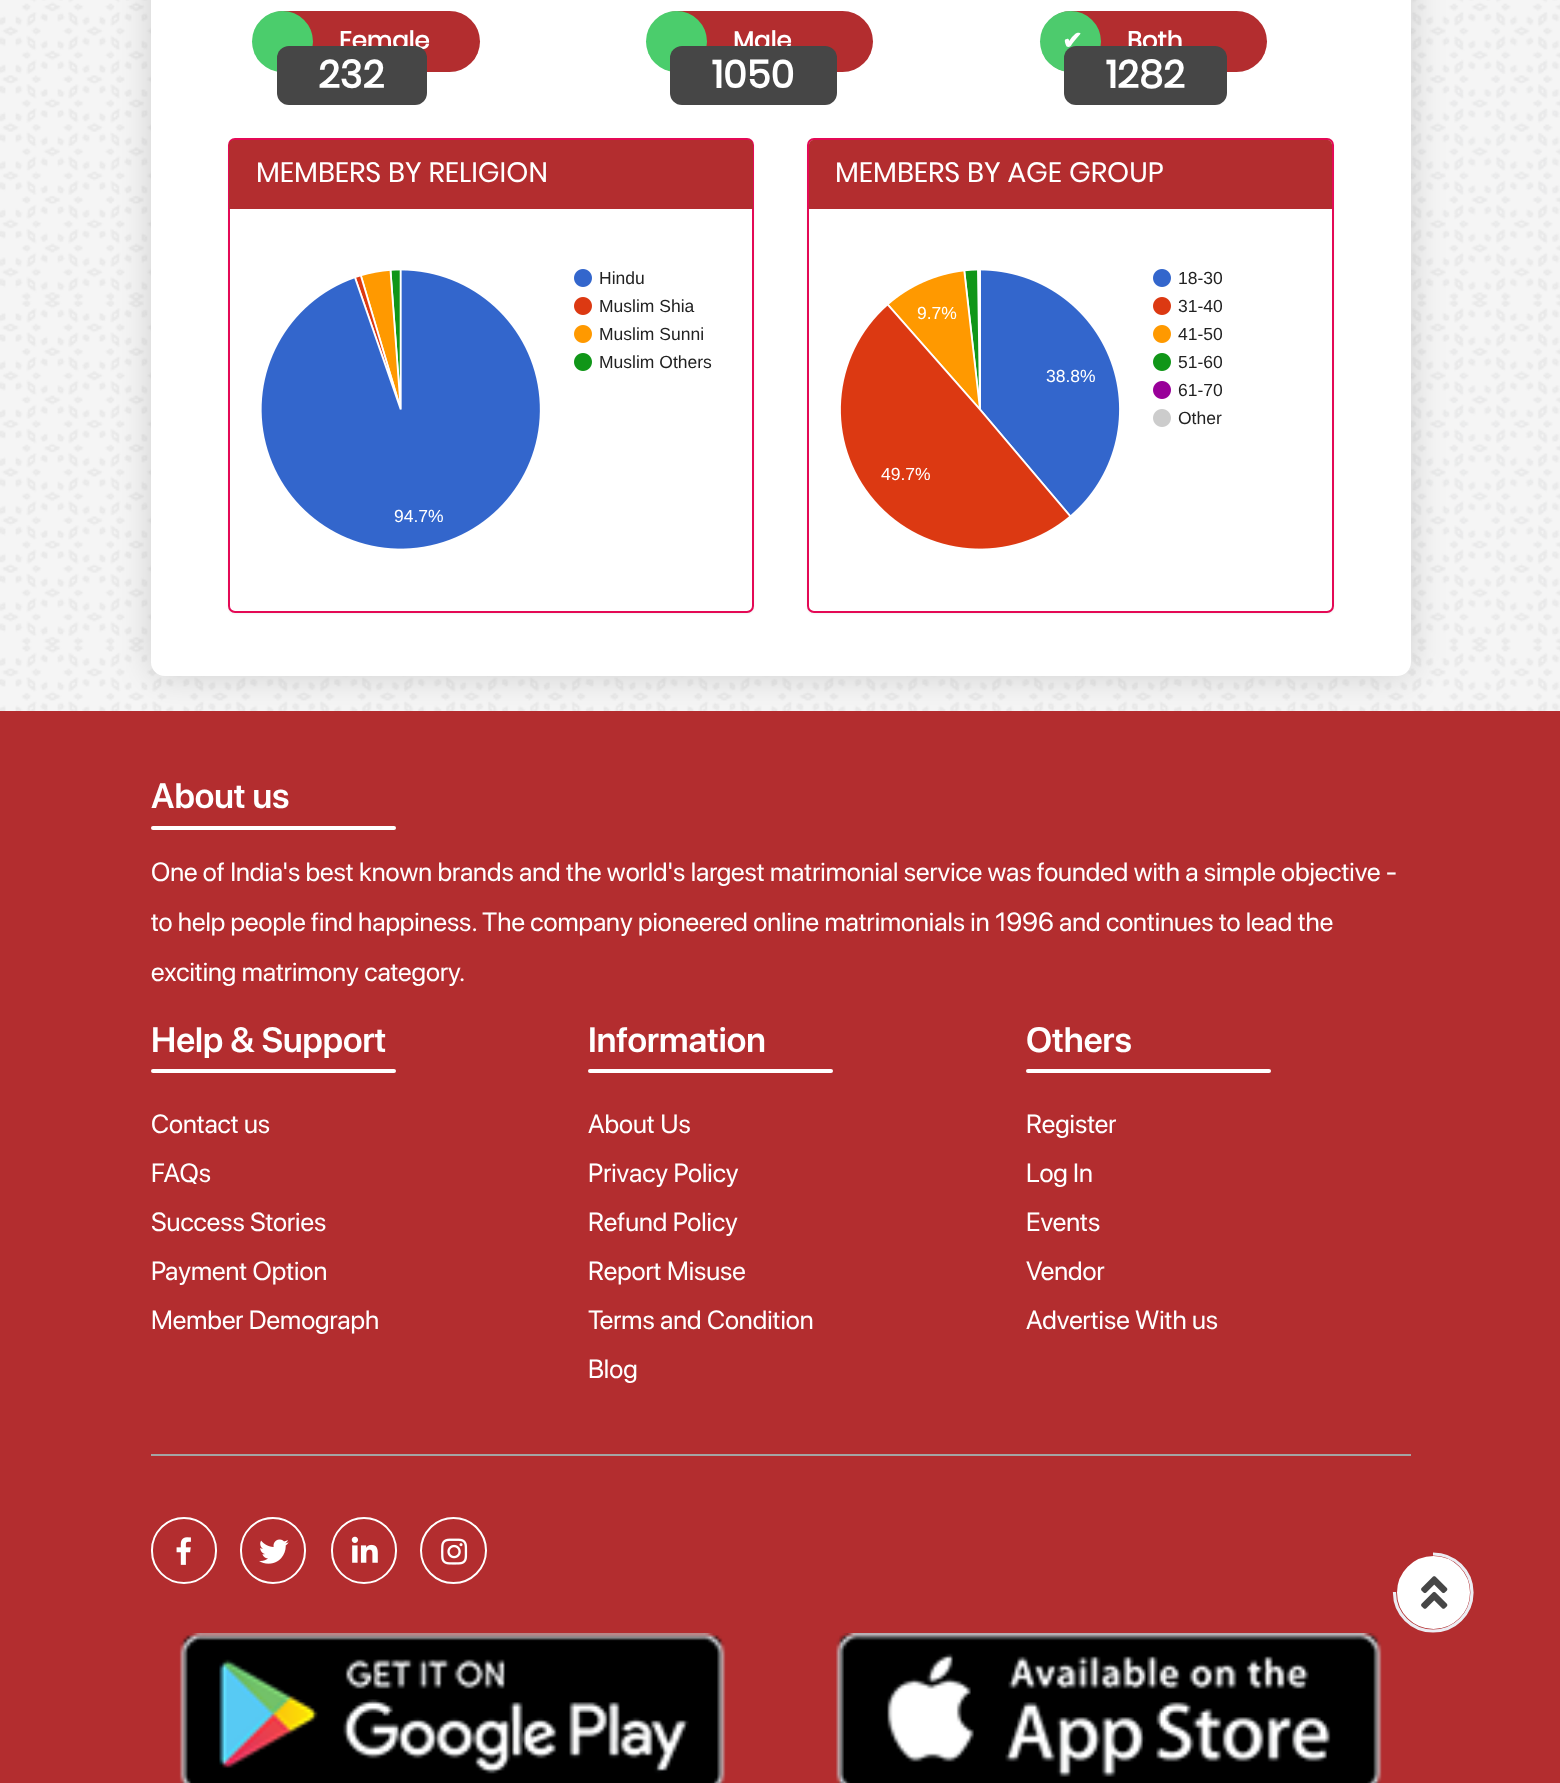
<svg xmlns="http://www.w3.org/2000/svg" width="1560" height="1783">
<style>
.a{font:bold 24.5px Poppins;fill:#fff}
.b{font:bold 38.5px Poppins;fill:#fff}
.c{font:bold 24.5px DejaVu Sans;fill:#fff}
.d{font:28px Poppins;fill:#fff}
.e{font:17.5px Liberation Sans;fill:#222}
.f{font:17.5px Liberation Sans;fill:#fff}
.g{font:600 35px SF Pro Display;fill:#fff}
.h{font:26.25px SF Pro Display;fill:#fff}
</style>
<rect width="100%" height="100%" fill="#f5f5f5"/>
<image href="1.png" x="0" y="0" width="1560" height="711"/>
<path fill="#b32d2f" d="M0 711h1560v1072H0z"/>
<rect fill="#00000026" filter="blur(17.5px)" x="151" y="-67" width="1260" height="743" rx="14"/>
<rect fill="#fff" x="151" y="-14" width="1260" height="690" rx="14"/>
<rect fill="#b32d2f" x="254" y="11" width="226" height="61" rx="30.5"/>
<circle fill="#4bcd6c" cx="282.5" cy="41.5" r="30.5"/>
<rect fill="#b32d2f" x="648" y="11" width="225" height="61" rx="30.5"/>
<circle fill="#4bcd6c" cx="676.5" cy="41.5" r="30.5"/>
<rect fill="#b32d2f" x="1041" y="11" width="226" height="61" rx="30.5"/>
<circle fill="#4dcb6d" cx="1070.5" cy="41.5" r="30.5"/>
<rect fill="#0000000d" filter="blur(1px)" x="228" y="140" width="526" height="474" rx="7"/>
<rect fill="#fff" stroke="#e40955" stroke-width="2" x="229" y="139" width="524" height="473" rx="6"/>
<path fill="#b32d2f" d="M234 140h514c3 0 5 2 5 5v63h-524v-63c0-3 2-5 5-5z"/>
<path fill="#b32d2f" d="M229 208h524v1H229z"/>
<image href="2.png" x="261" y="269" width="331" height="280"/>
<rect fill="#0000000d" filter="blur(1px)" x="807" y="140" width="527" height="474" rx="7"/>
<rect fill="#fff" stroke="#e40955" stroke-width="2" x="808" y="139" width="525" height="473" rx="6"/>
<path fill="#b32d2f" d="M814 140h513c3 0 5 2 5 5v63h-523v-63c0-3 2-5 5-5z"/>
<path fill="#b32d2f" d="M809 208h523v1H809z"/>
<image href="3.png" x="840" y="269" width="331" height="280"/>
<rect fill="#fff" x="151" y="826" width="245" height="4" rx="2"/>
<rect fill="#fff" x="151" y="1069" width="245" height="4" rx="2"/>
<rect fill="#fff" x="588" y="1069" width="245" height="4" rx="2"/>
<rect fill="#fff" x="1026" y="1069" width="245" height="4" rx="2"/>
<path fill="#a4a4a4" d="M151 1454h1260v2H151z"/>
<rect fill="none" stroke="#fff" stroke-width="2" x="152" y="1518" width="64" height="65" rx="32"/>
<image href="4.png" x="176" y="1537" width="15" height="28"/>
<rect fill="none" stroke="#fff" stroke-width="2" x="241" y="1518" width="64" height="65" rx="32"/>
<image href="5.png" x="259" y="1539" width="30" height="25"/>
<rect fill="none" stroke="#fff" stroke-width="2" x="332" y="1518" width="64" height="65" rx="32"/>
<image href="6.png" x="351" y="1536" width="27" height="27"/>
<circle fill="none" stroke="#fff" stroke-width="2" cx="453.5" cy="1550.5" r="32.5"/>
<image href="7.png" x="441" y="1538" width="27" height="27"/>
<image href="8.png" x="179" y="1633" width="547" height="150"/>
<image href="9.png" x="836" y="1633" width="546" height="150"/>
<circle fill="#fff" stroke="#b32d2f" stroke-width="4" cx="1433.5" cy="1592.5" r="38.5"/>
<path fill="none" stroke="#ecedf3" stroke-width="3.2" d="M1433 1554c21.5 0 39 17 39 38.5c0 21.5-17.5 38.5-39 38.5c-21 0-38.5-17-38.5-38.5v-.5"/>
<image href="10.png" x="1421" y="1576" width="27" height="33"/>
<text class="a" x="339" y="49">Female</text>
<rect fill="#464646" x="277" y="46" width="150" height="59" rx="12"/>
<text class="b" x="318" y="88">232</text>
<text class="a" x="733" y="49">Male</text>
<rect fill="#464646" x="670" y="46" width="167" height="59" rx="12"/>
<text class="b" x="712" y="88">1050</text>
<text class="c" x="1062" y="49">✔</text>
<text class="a" x="1127" y="49">Both</text>
<rect fill="#464646" x="1064" y="46" width="163" height="59" rx="12"/>
<text class="b" x="1106" y="88">1282</text>
<text class="d" x="256" y="182">MEMBERS BY RELIGION</text>
<text class="e" x="599" y="284">Hindu</text>
<text class="e" x="599" y="312">Muslim Shia</text>
<text class="e" x="599" y="340">Muslim Sunni</text>
<text class="e" x="599" y="368">Muslim Others</text>
<text class="f" x="394" y="522">94.7%</text>
<text class="d" x="835" y="182">MEMBERS BY AGE GROUP</text>
<text class="e" x="1178" y="284">18-30</text>
<text class="f" x="917" y="319">9.7%</text>
<text class="e" x="1178" y="312">31-40</text>
<text class="e" x="1178" y="340">41-50</text>
<text class="e" x="1178" y="368">51-60</text>
<text class="f" x="1046" y="382">38.8%</text>
<text class="e" x="1178" y="396">61-70</text>
<text class="e" x="1178" y="424">Other</text>
<text class="f" x="881" y="480">49.7%</text>
<text class="g" x="151" y="808">About us</text>
<text class="h" x="151" y="881">One of India's best known brands and the world's largest matrimonial service was founded with a simple objective -</text>
<text class="h" x="151" y="931">to help people find happiness. The company pioneered online matrimonials in 1996 and continues to lead the</text>
<text class="h" x="151" y="981">exciting matrimony category.</text>
<text class="g" x="151" y="1052">Help &amp; Support</text>
<text class="h" x="151" y="1133">Contact us</text>
<text class="h" x="151" y="1182">FAQs</text>
<text class="h" x="151" y="1231">Success Stories</text>
<text class="h" x="151" y="1280">Payment Option</text>
<text class="h" x="151" y="1329">Member Demograph</text>
<text class="g" x="588" y="1052">Information</text>
<text class="h" x="588" y="1133">About Us</text>
<text class="h" x="588" y="1182">Privacy Policy</text>
<text class="h" x="588" y="1231">Refund Policy</text>
<text class="h" x="588" y="1280">Report Misuse</text>
<text class="h" x="588" y="1329">Terms and Condition</text>
<text class="h" x="588" y="1378">Blog</text>
<text class="g" x="1026" y="1052">Others</text>
<text class="h" x="1026" y="1133">Register</text>
<text class="h" x="1026" y="1182">Log In</text>
<text class="h" x="1026" y="1231">Events</text>
<text class="h" x="1026" y="1280">Vendor</text>
<text class="h" x="1026" y="1329">Advertise With us</text>
</svg>
